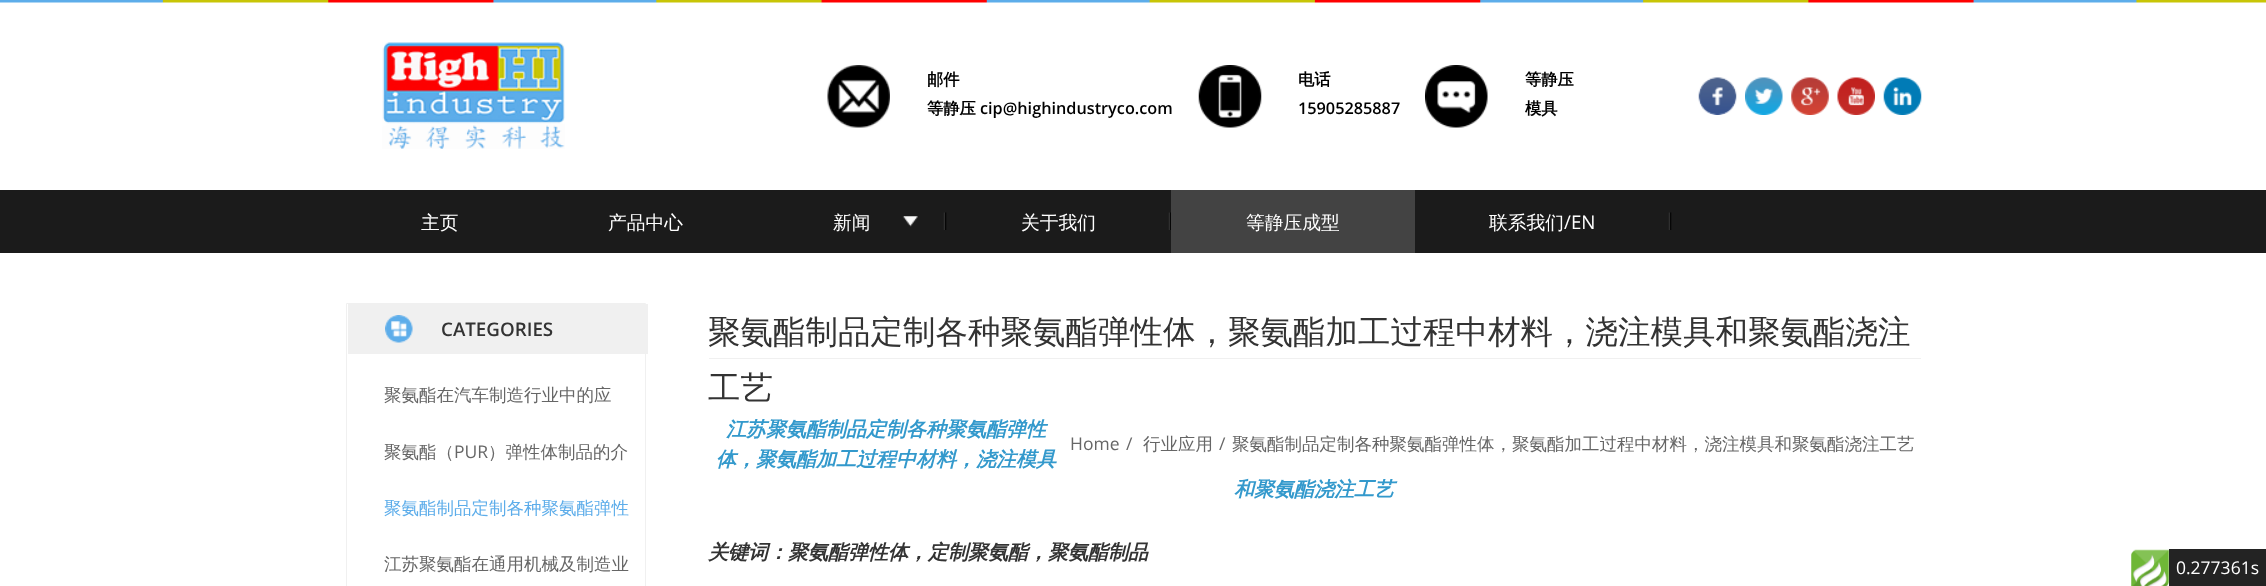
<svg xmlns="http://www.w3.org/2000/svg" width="2266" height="586">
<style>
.a{font:bold 16.25px WenQuanYi Zen Hei;fill:#000}
.b{font:600 16.25px Open Sans;fill:#000}
.c{font:500 18.75px WenQuanYi Zen Hei;fill:#fff}
.d{font:18.75px Open Sans;fill:#fff}
.e{font:600 18.75px Open Sans;fill:#333}
.f{font:500 17.5px WenQuanYi Zen Hei;fill:#666}
.g{font:17.5px Open Sans;fill:#666}
.h{font:500 17.5px WenQuanYi Zen Hei;fill:#5dadea}
.i{font:500 32.5px WenQuanYi Zen Hei;fill:#333}
.j{font:italic bold 20px WenQuanYi Zen Hei;fill:#39c}
.k{font:italic bold 20px WenQuanYi Zen Hei;fill:#333}
.l{font:17.5px Open Sans;fill:#fff}
</style>
<rect width="100%" height="100%" fill="#fff"/>
<image href="1.png" x="0" y="0" width="2266" height="3"/>
<image href="2.png" x="382" y="42" width="183" height="107"/>
<image href="3.png" x="827" y="65" width="63" height="63"/>
<image href="4.png" x="1198" y="65" width="64" height="63"/>
<image href="5.png" x="1425" y="65" width="63" height="63"/>
<image href="6.png" x="1698" y="77" width="39" height="38"/>
<image href="7.png" x="1745" y="77" width="38" height="38"/>
<image href="8.png" x="1791" y="77" width="38" height="38"/>
<image href="9.png" x="1837" y="77" width="38" height="38"/>
<image href="10.png" x="1883" y="77" width="39" height="38"/>
<path fill="#1b1b1b" d="M0 190h2266v63H0z"/>
<image href="11.png" x="943" y="212" width="4" height="18"/>
<image href="12.png" x="902" y="216" width="16" height="11"/>
<image href="13.png" x="1168" y="212" width="3" height="18"/>
<path fill="#434343" d="M1171 190h244v63H1171z"/>
<image href="11.png" x="1668" y="212" width="4" height="18"/>
<path fill="none" stroke="#f0f0f0" d="M346.5 303.5h299v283H346.5z"/>
<path fill="#f0f0f0" d="M348 304h300v50H348z"/>
<image href="14.png" x="385" y="315" width="28" height="28"/>
<path fill="#f0f0f0" d="M709 358h1212v1H709z"/>
<image href="15.png" x="2131" y="549" width="38" height="37"/>
<path fill="#232323" d="M2169 549h97v37H2169z"/>
<text class="a" x="927" y="85">邮件</text>
<text class="a" x="927" y="114">等静压</text>
<text class="b" x="980" y="114">cip@highindustryco.com</text>
<text class="a" x="1298" y="85">电话</text>
<text class="b" x="1298" y="114">15905285887</text>
<text class="a" x="1525" y="85">等静压</text>
<text class="a" x="1525" y="114">模具</text>
<text class="c" x="421" y="229">主页</text>
<text class="c" x="608" y="229">产品中心</text>
<text class="c" x="833" y="229">新闻</text>
<text class="c" x="1021" y="229">关于我们</text>
<text class="c" x="1246" y="229">等静压成型</text>
<text class="c" x="1489" y="229">联系我们</text>
<text class="d" x="1564" y="229">/EN</text>
<text class="e" x="441" y="336">CATEGORIES</text>
<text class="f" x="384" y="401">聚氨酯在汽车制造行业中的应</text>
<text class="f" x="384" y="458">聚氨酯（</text>
<text class="g" x="454" y="458">PUR</text>
<text class="f" x="488" y="458">）弹性体制品的介</text>
<text class="h" x="384" y="514">聚氨酯制品定制各种聚氨酯弹性</text>
<text class="f" x="384" y="570">江苏聚氨酯在通用机械及制造业</text>
<text class="i" x="708" y="343">聚氨酯制品定制各种聚氨酯弹性体，聚氨酯加工过程中材料，浇注模具和聚氨酯浇注</text>
<text class="i" x="708" y="399">工艺</text>
<text class="g" x="1070" y="450">Home</text>
<text class="g" x="1126" y="450">/</text>
<text class="f" x="1143" y="450">行业应用</text>
<text class="g" x="1219" y="450">/</text>
<text class="f" x="1232" y="450">聚氨酯制品定制各种聚氨酯弹性体，聚氨酯加工过程中材料，浇注模具和聚氨酯浇注工艺</text>
<text class="j" x="726" y="436">江苏聚氨酯制品定制各种聚氨酯弹性</text>
<text class="j" x="716" y="466">体，聚氨酯加工过程中材料，浇注模具</text>
<text class="j" x="1234" y="496">和聚氨酯浇注工艺</text>
<text class="k" x="708" y="559">关键词：聚氨酯弹性体，定制聚氨酯，聚氨酯制品</text>
<text class="l" x="2176" y="574">0.277361s</text>
</svg>
